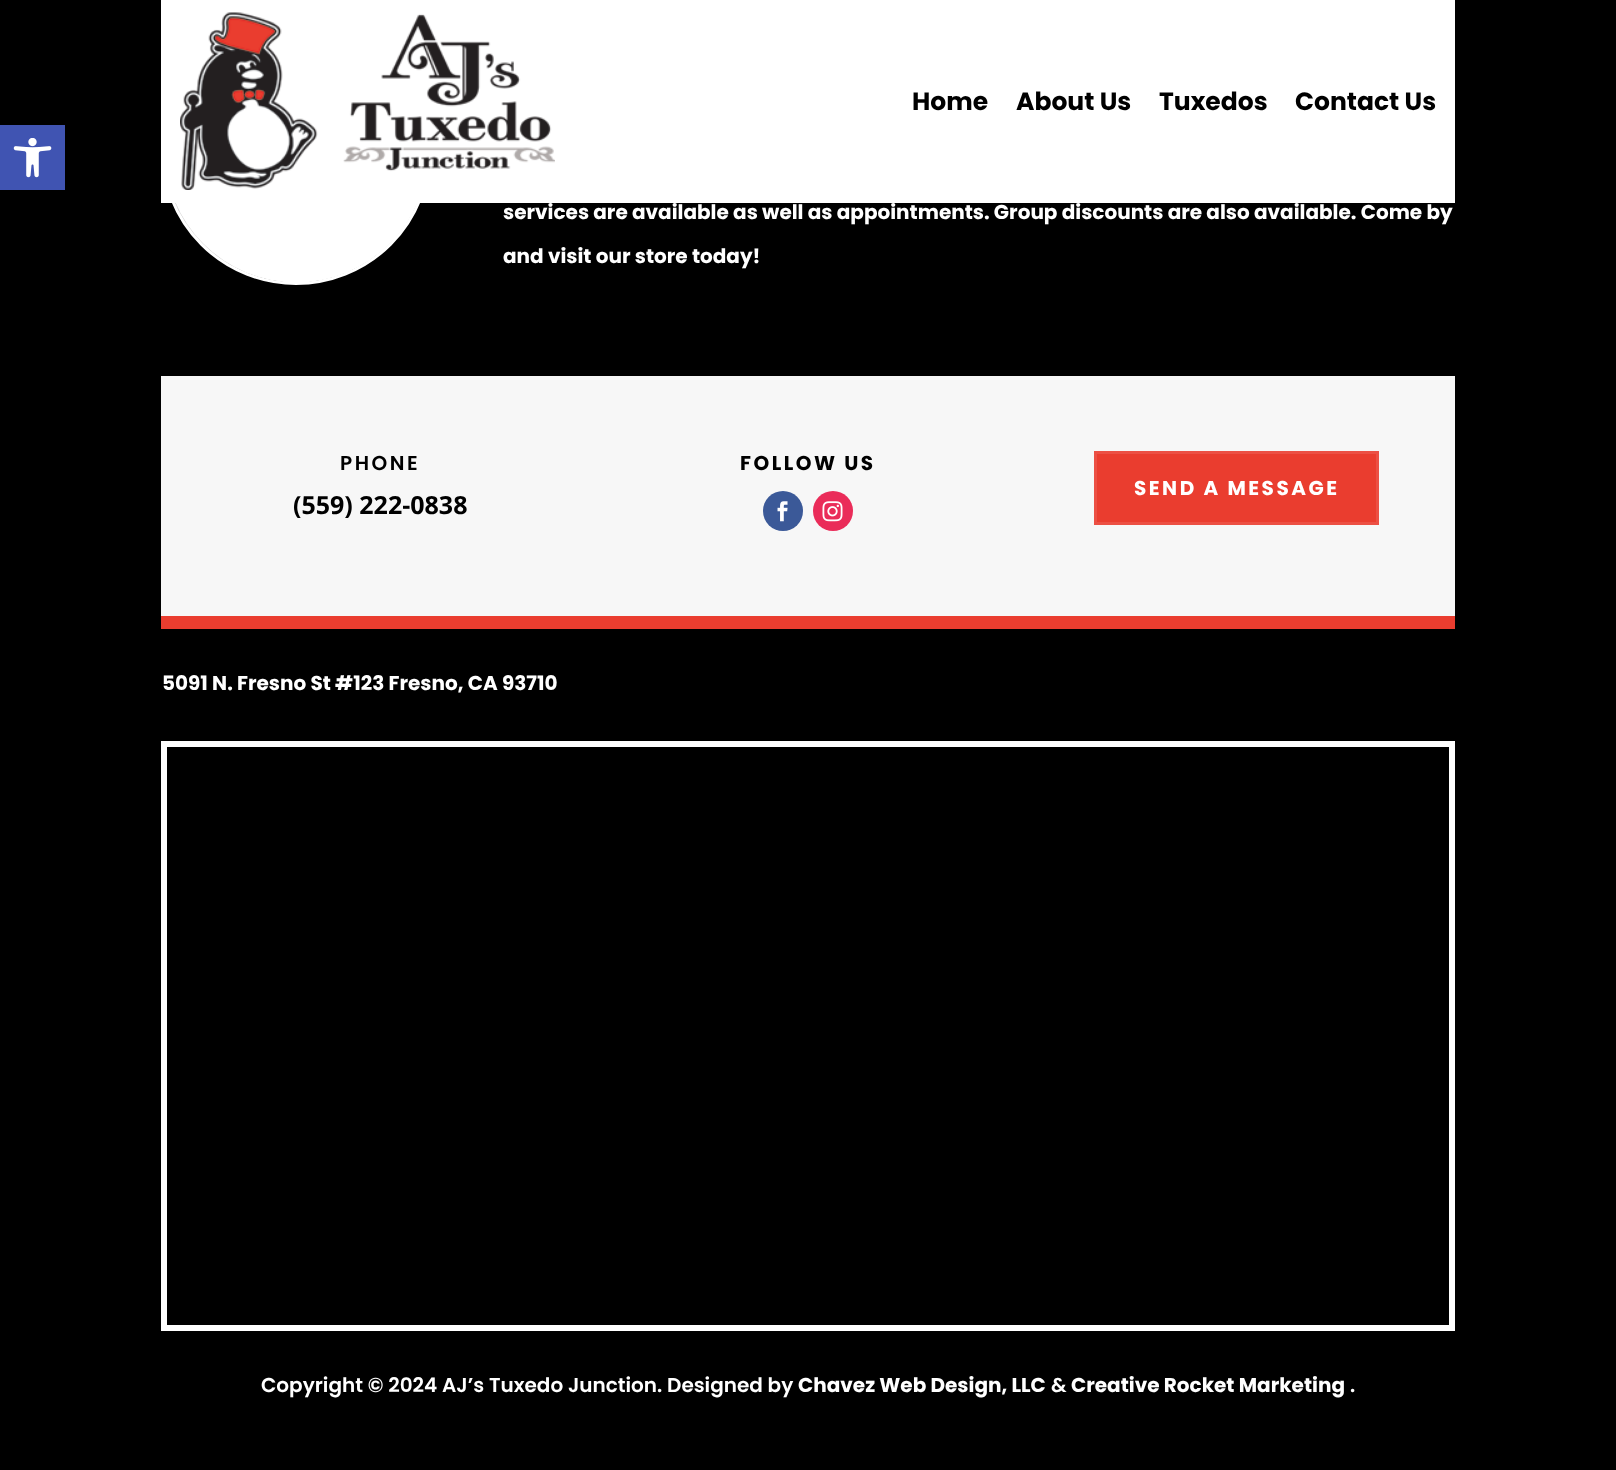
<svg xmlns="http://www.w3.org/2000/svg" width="1616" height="1470">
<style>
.a{font:bold 25px Poppins;fill:#000}
.b{font:bold 20px Poppins;fill:#fff}
.c{font:600 20px Poppins;letter-spacing:2.5px;fill:#000}
.d{font:bold 25px Open Sans;fill:#000}
.e{font:bold 20px Poppins;letter-spacing:2.5px;fill:#000}
.f{font:bold 20px Poppins;letter-spacing:2.5px;fill:#fff}
.g{font:600 20px Poppins;fill:#fff}
</style>
<rect width="100%" height="100%" fill="#000"/>
<path fill="#4054b2" d="M0 125h65v65H0z"/>
<image href="1.png" x="13" y="138" width="39" height="40"/>
<circle fill="none" stroke="#fff" stroke-width="3" cx="296" cy="150" r="133.5"/>
<path fill="#fff" d="M161 0h1294v203H161z"/>
<image href="2.png" x="180" y="12" width="375" height="178"/>
<image href="3.png" x="174" y="203" width="245" height="79"/>
<path fill="#f7f7f7" d="M161 376h1294v240H161z"/>
<path fill="#ea3d2f" d="M161 616h1294v13H161z"/>
<circle fill="#3b5998" cx="783" cy="511" r="20"/>
<image href="4.png" x="777" y="501" width="11" height="21"/>
<circle fill="#ea2c59" cx="833" cy="511" r="20"/>
<image href="5.png" x="822" y="501" width="21" height="21"/>
<path fill="#ea3d2f" stroke="#ec5044" stroke-width="3" d="M1095.5 452.5h282v71H1095.5z"/>
<path fill="none" stroke="#fff" stroke-width="6" d="M164 744h1288v584H164z"/>
<text class="a" x="912" y="110">Home</text>
<text class="a" x="1016" y="110">About Us</text>
<text class="a" x="1159" y="110">Tuxedos</text>
<text class="a" x="1295" y="110">Contact Us</text>
<text class="b" x="503" y="219">services are available as well as appointments. Group discounts are also available. Come by</text>
<text class="b" x="503" y="263">and visit our store today!</text>
<text class="c" x="340" y="470">PHONE</text>
<text class="d" x="293" y="514">(559) 222-0838</text>
<text class="e" x="740" y="470">FOLLOW US</text>
<text class="f" x="1134" y="495">SEND A MESSAGE</text>
<text class="b" x="162" y="690">5091 N. Fresno St #123 Fresno, CA 93710</text>
<text class="g" x="261" y="1392">Copyright © 2024 AJ’s Tuxedo Junction. Designed by</text>
<text class="b" x="798" y="1392">Chavez Web Design, LLC</text>
<text class="g" x="1051" y="1392">&amp;</text>
<text class="b" x="1071" y="1392">Creative Rocket Marketing</text>
<text class="g" x="1350" y="1392">.</text>
</svg>
